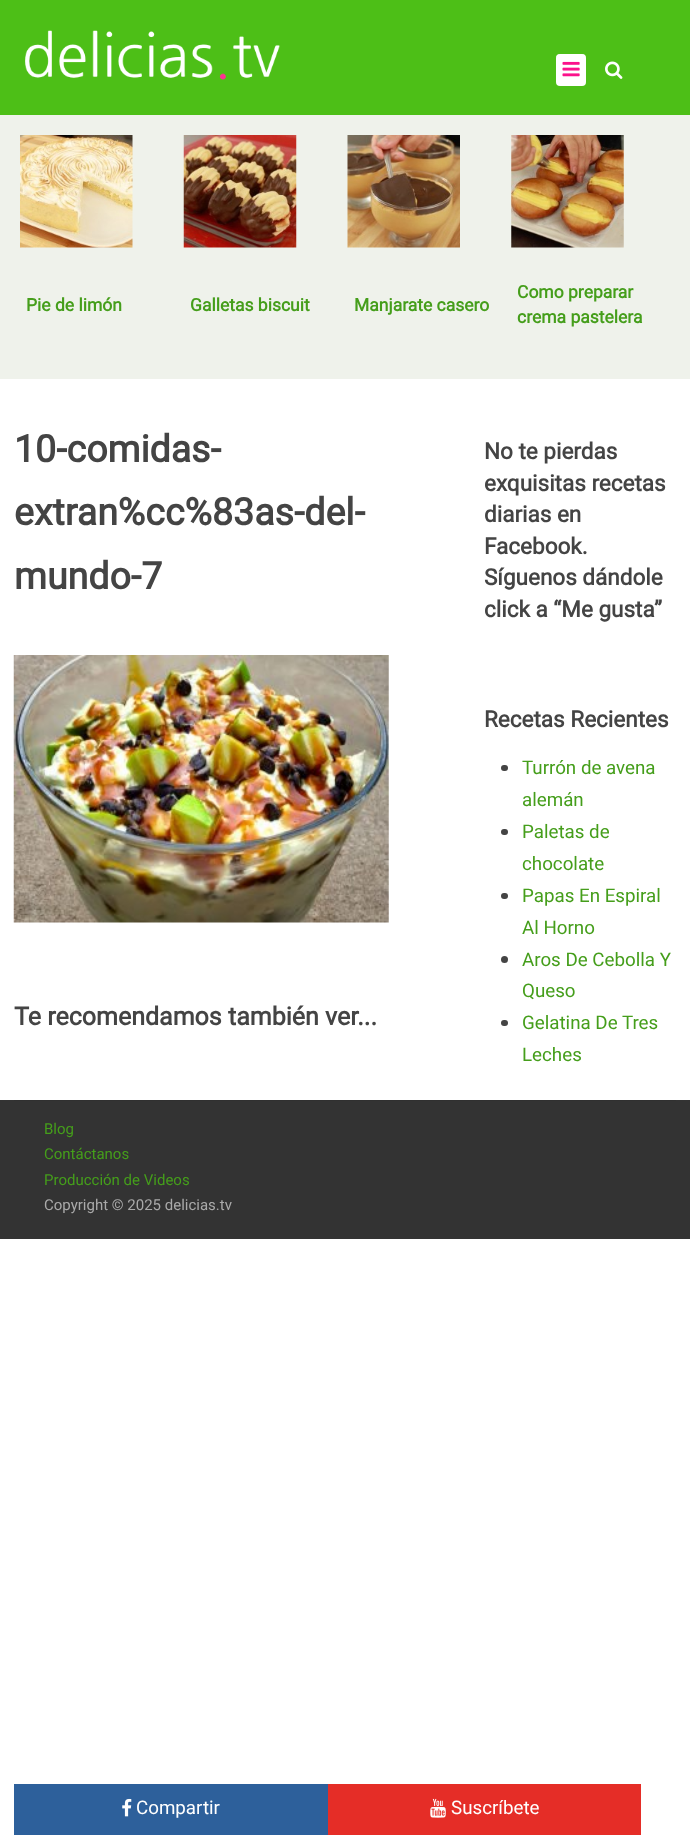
<svg xmlns="http://www.w3.org/2000/svg" width="690" height="1841">
<style>
.a{font:bold 17.5px Roboto;fill:#459e1b}
.b{font:bold 37.5px Roboto;fill:#444}
.c{font:bold 25px Roboto;fill:#444}
.d{font:18.75px Roboto;fill:#fff}
.e{font:bold 22.5px Roboto;fill:#444}
.f{font:18.75px Roboto;fill:#459e1b}
.g{font:15px Roboto;fill:#459e1b}
.h{font:15px Roboto;fill:#aaa}
</style>
<rect width="100%" height="100%" fill="#fff"/>
<path fill="#4dbf17" d="M0 0h690v115H0z"/>
<image href="1.png" x="25" y="30" width="255" height="50"/>
<rect fill="#fff" x="556" y="54" width="30" height="32" rx="4"/>
<path fill="#ffffff80" d="M560 55h22c3 0 4 2 4 4c0-5.5-3.5-5-7.5-5h-15c-4 0-7.5-.5-7.5 5c0-2 2-4 4-4z"/>
<image href="2.png" x="562" y="61" width="18" height="16"/>
<image href="3.png" x="605" y="61" width="18" height="18"/>
<path fill="#eff2eb" d="M0 115h690v264H0z"/>
<image href="4.png" x="20" y="135" width="113" height="113"/>
<image href="5.png" x="183" y="135" width="114" height="113"/>
<image href="6.png" x="347" y="135" width="113" height="113"/>
<image href="7.png" x="511" y="135" width="113" height="113"/>
<image href="8.png" x="13" y="655" width="376" height="268"/>
<path fill="#2d609b" d="M14 1784h314v51H14z"/>
<image href="9.png" x="122" y="1798" width="10" height="19"/>
<path fill="#e52d27" d="M328 1784h313v51H328z"/>
<image href="10.png" x="430" y="1798" width="16" height="20"/>
<rect fill="#444" x="501" y="765" width="7" height="6" rx="3"/>
<rect fill="#444" x="501" y="829" width="7" height="6" rx="3"/>
<rect fill="#444" x="501" y="893" width="7" height="6" rx="3"/>
<circle fill="#444" cx="504.5" cy="959.5" r="3.5"/>
<rect fill="#444" x="501" y="1020" width="7" height="6" rx="3"/>
<path fill="#333" d="M0 1100h690v139H0z"/>
<path fill="#303030" d="M14 1100h662v1H14z"/>
<text class="a" x="26" y="311">Pie de limón</text>
<text class="a" x="190" y="311">Galletas biscuit</text>
<text class="a" x="354" y="311">Manjarate casero</text>
<text class="a" x="517" y="298">Como preparar</text>
<text class="a" x="517" y="323">crema pastelera</text>
<text class="b" x="14" y="462">10-comidas-</text>
<text class="b" x="14" y="525">extran%cc%83as-del-</text>
<text class="b" x="14" y="589">mundo-7</text>
<text class="c" x="14" y="1025">Te recomendamos también ver...</text>
<text class="d" x="136" y="1814">Compartir</text>
<text class="d" x="451" y="1814">Suscríbete</text>
<text class="e" x="484" y="459">No te pierdas</text>
<text class="e" x="484" y="491">exquisitas recetas</text>
<text class="e" x="484" y="522">diarias en</text>
<text class="e" x="484" y="554">Facebook.</text>
<text class="e" x="484" y="585">Síguenos dándole</text>
<text class="e" x="484" y="617">click a “Me gusta”</text>
<text class="e" x="484" y="727">Recetas Recientes</text>
<text class="f" x="522" y="774">Turrón de avena</text>
<text class="f" x="522" y="806">alemán</text>
<text class="f" x="522" y="838">Paletas de</text>
<text class="f" x="522" y="870">chocolate</text>
<text class="f" x="522" y="902">Papas En Espiral</text>
<text class="f" x="522" y="934">Al Horno</text>
<text class="f" x="522" y="966">Aros De Cebolla Y</text>
<text class="f" x="522" y="997">Queso</text>
<text class="f" x="522" y="1029">Gelatina De Tres</text>
<text class="f" x="522" y="1061">Leches</text>
<text class="g" x="44" y="1134">Blog</text>
<text class="g" x="44" y="1159">Contáctanos</text>
<text class="g" x="44" y="1185">Producción de Videos</text>
<text class="h" x="44" y="1210">Copyright © 2025 delicias.tv</text>
</svg>
